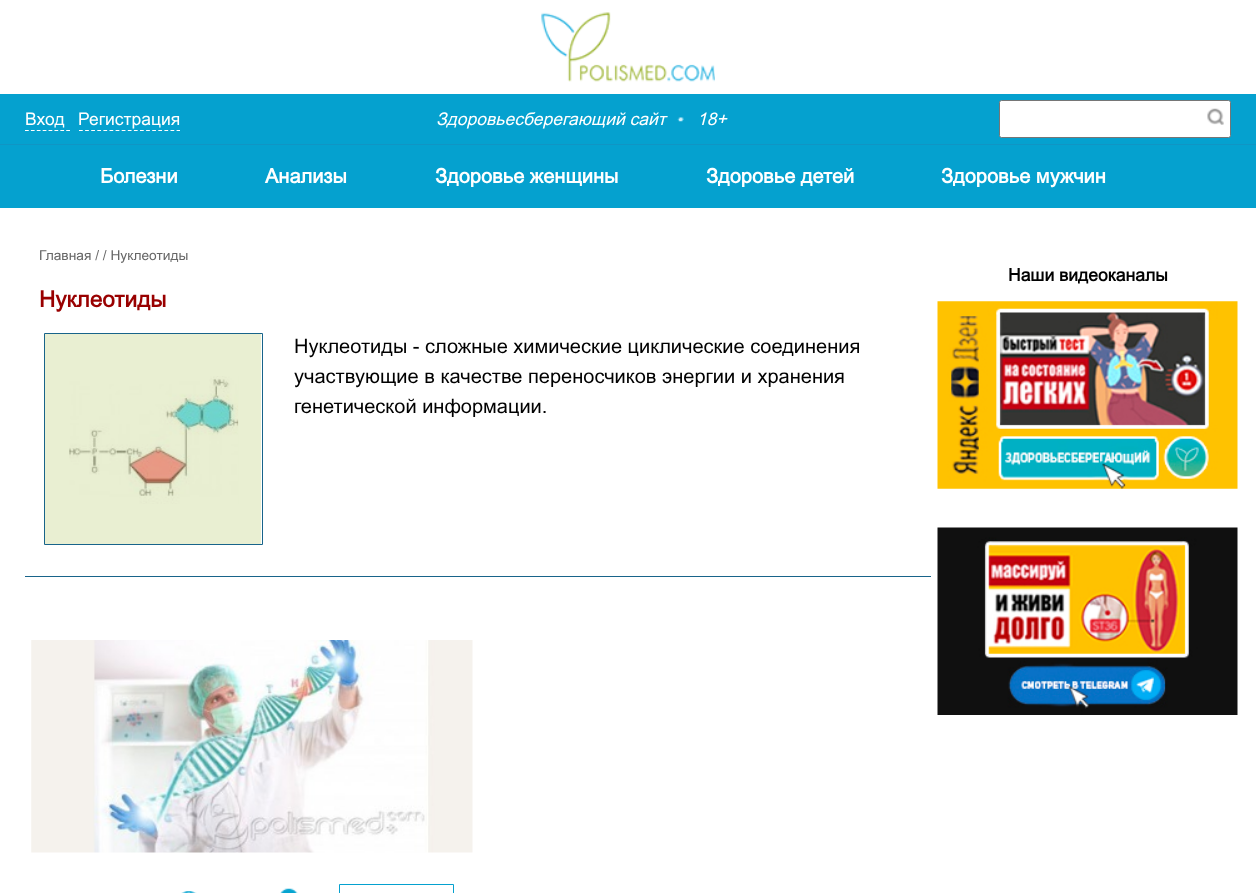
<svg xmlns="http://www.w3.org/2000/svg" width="1256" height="893">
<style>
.a{font:17.5px Arial;fill:#fff}
.b{font:italic 17.5px Arial;fill:#fff}
.c{font:bold 20px Arial;fill:#fff}
.d{font:13.75px Arial;fill:#666}
.e{font:bold 22.5px Arial;fill:#900}
.f{font:20px Arial;fill:#010101}
.g{font:bold 17.5px Arial;fill:#010101}
</style>
<rect width="100%" height="100%" fill="#fff"/>
<path fill="#e9efd2" d="M45 334h216v210H45z"/>
<image href="1.png" x="541" y="12" width="174" height="70"/>
<path fill="#05a1cf" d="M0 94h1256v114H0z"/>
<path fill="#1095c4" d="M0 144h1256v1H0z"/>
<path fill="none" stroke="#fff" stroke-width="1.2" stroke-dasharray="3.75 2.14" d="M25 130.5h45"/>
<path fill="none" stroke="#fff" stroke-width="1.2" stroke-dasharray="3.75 2.35" d="M79 130.5h101"/>
<image href="2.png" x="677" y="117" width="7" height="5"/>
<rect fill="#fff" stroke="#767676" x="999.5" y="100.5" width="231" height="37" rx="2"/>
<image href="3.png" x="1207" y="108" width="17" height="17"/>
<path fill="none" stroke="#18648a" d="M44.5 333.5h218v211H44.5z"/>
<image href="4.png" x="69" y="376" width="170" height="128"/>
<path fill="#18648a" d="M25 576h906v1H25z"/>
<image href="5.png" x="31" y="640" width="442" height="213"/>
<image href="6.png" x="181" y="891" width="16" height="2"/>
<image href="7.png" x="280" y="888" width="18" height="5"/>
<path fill="none" stroke="#05a1cf" d="M339.5 884.5h114v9H339.5z"/>
<image href="8.png" x="937" y="301" width="301" height="188"/>
<image href="9.png" x="937" y="527" width="301" height="188"/>
<text class="a" x="25" y="125">Вход</text>
<text class="a" x="78" y="125">Регистрация</text>
<text class="b" x="436" y="125">Здоровьесберегающий сайт</text>
<text class="b" x="697" y="125">18+</text>
<text class="c" x="100" y="183">Болезни</text>
<text class="c" x="265" y="183">Анализы</text>
<text class="c" x="435" y="183">Здоровье женщины</text>
<text class="c" x="706" y="183">Здоровье детей</text>
<text class="c" x="941" y="183">Здоровье мужчин</text>
<text class="d" x="39" y="260">Главная / / Нуклеотиды</text>
<text class="e" x="39" y="307">Нуклеотиды</text>
<text class="f" x="294" y="353">Нуклеотиды - сложные химические циклические соединения</text>
<text class="f" x="294" y="383">участвующие в качестве переносчиков энергии и хранения</text>
<text class="f" x="294" y="413">генетической информации.</text>
<text class="g" x="1008" y="281">Наши видеоканалы</text>
</svg>
